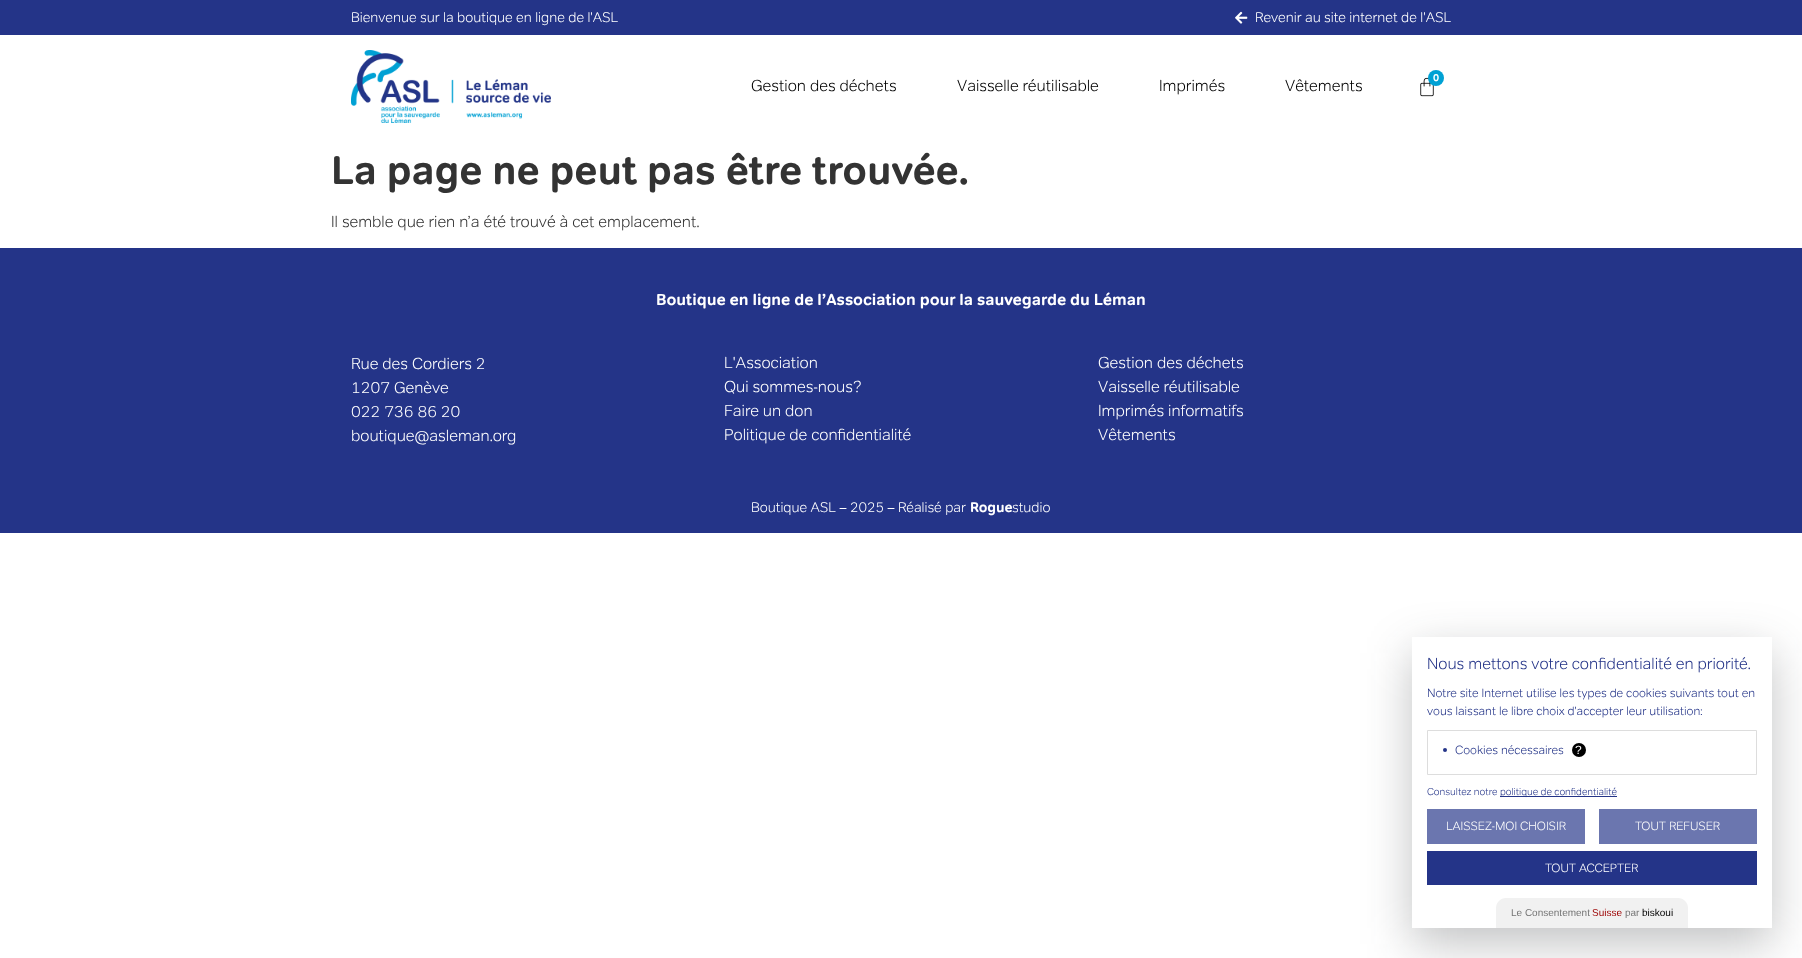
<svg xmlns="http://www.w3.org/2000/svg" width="1802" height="958">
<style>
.a{font:300 14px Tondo;fill:#fff}
.b{font:bold 10px Tondo;fill:#fff}
.c{font:300 16px Tondo;fill:#000}
.d{font:bold 40px Tondo;fill:#333}
.e{font:300 16px Tondo;fill:#333}
.f{font:bold 16px Tondo;fill:#fff}
.g{font:300 16px Tondo;fill:#fff}
.h{font:bold 14px Tondo;fill:#fff}
.i{font:300 16px Tondo;fill:#243488}
.j{font:300 12px Tondo;fill:#243488}
.k{font:12px Liberation Sans;fill:#fff}
.l{font:300 10px Tondo;fill:#243488}
.m{font:300 12px Tondo;fill:#fff}
.n{font:10px Liberation Sans;fill:#767676}
.o{font:10px Liberation Sans;fill:#9c0000}
.p{font:10px Liberation Sans;fill:#000}
</style>
<defs>
<clipPath id="clip1"><path d="M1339 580h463v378h-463zm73 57h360v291h-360z" clip-rule="evenodd"/></clipPath>
</defs>
<rect width="100%" height="100%" fill="#fff"/>
<path fill="#243488" d="M0 0h1802v35H0z"/>
<image href="1.png" x="1235" y="11" width="13" height="13"/>
<image href="2.png" x="351" y="50" width="200" height="73"/>
<image href="3.png" x="1420" y="77" width="14" height="20"/>
<circle fill="#00a1d4" cx="1436" cy="78" r="8"/>
<path fill="#243488" d="M0 248h1802v285H0z"/>
<g clip-path="url(#clip1)">
<path fill="#21252947" filter="blur(24px)" d="M1412 653h360v291H1412z"/>
</g>
<path fill="none" stroke="#ddd" d="M1427.5 730.5h329v44H1427.5z"/>
<circle fill="#243488" cx="1445" cy="750" r="2"/>
<circle fill="#000" cx="1579" cy="750" r="7"/>
<path fill="#243488" d="M1500 796h117v1H1500z"/>
<path fill="#6b76af" d="M1427 809h158v35H1427z"/>
<path fill="#6b76af" d="M1599 809h158v35H1599z"/>
<path fill="#243488" d="M1427 851h330v34H1427z"/>
<path fill="#f1f1f1" d="M1506 898h172c5.5 0 10 4.5 10 10v20h-192v-20c0-5.5 4.5-10 10-10z"/>
<text class="a" x="351" y="22">Bienvenue sur la boutique en ligne de l'ASL</text>
<text class="a" x="1255" y="22">Revenir au site internet de l'ASL</text>
<text class="b" x="1433" y="81">0</text>
<text class="c" x="751" y="91">Gestion des déchets</text>
<text class="c" x="957" y="91">Vaisselle réutilisable</text>
<text class="c" x="1159" y="91">Imprimés</text>
<text class="c" x="1285" y="91">Vêtements</text>
<text class="d" x="331" y="184">La page ne peut pas être trouvée.</text>
<text class="e" x="331" y="227">Il semble que rien n’a été trouvé à cet emplacement.</text>
<text class="f" x="656" y="305">Boutique en ligne de l’Association pour la sauvegarde du Léman</text>
<text class="g" x="351" y="369">Rue des Cordiers 2</text>
<text class="g" x="351" y="393">1207 Genève</text>
<text class="g" x="351" y="417">022 736 86 20</text>
<text class="g" x="351" y="441">boutique@asleman.org</text>
<text class="g" x="724" y="368">L'Association</text>
<text class="g" x="724" y="392">Qui sommes-nous?</text>
<text class="g" x="724" y="416">Faire un don</text>
<text class="g" x="724" y="440">Politique de confidentialité</text>
<text class="g" x="1098" y="368">Gestion des déchets</text>
<text class="g" x="1098" y="392">Vaisselle réutilisable</text>
<text class="g" x="1098" y="416">Imprimés informatifs</text>
<text class="g" x="1098" y="440">Vêtements</text>
<text class="a" x="751" y="512">Boutique ASL – 2025 – Réalisé par</text>
<text class="h" x="970" y="512">Rogue</text>
<text class="a" x="1012" y="512">studio</text>
<text class="i" x="1427" y="669">Nous mettons votre confidentialité en priorité.</text>
<text class="j" x="1427" y="697">Notre site Internet utilise les types de cookies suivants tout en</text>
<text class="j" x="1427" y="715">vous laissant le libre choix d'accepter leur utilisation:</text>
<text class="j" x="1455" y="754">Cookies nécessaires</text>
<text class="k" x="1575" y="754">?</text>
<text class="l" x="1427" y="795">Consultez notre</text>
<text class="l" x="1500" y="795">politique de confidentialité</text>
<text class="m" x="1446" y="830">LAISSEZ-MOI CHOISIR</text>
<text class="m" x="1635" y="830">TOUT REFUSER</text>
<text class="m" x="1545" y="872">TOUT ACCEPTER</text>
<text class="n" x="1511" y="916">Le Consentement</text>
<text class="o" x="1592" y="916">Suisse</text>
<text class="n" x="1625" y="916">par</text>
<text class="p" x="1642" y="916">biskoui</text>
</svg>
